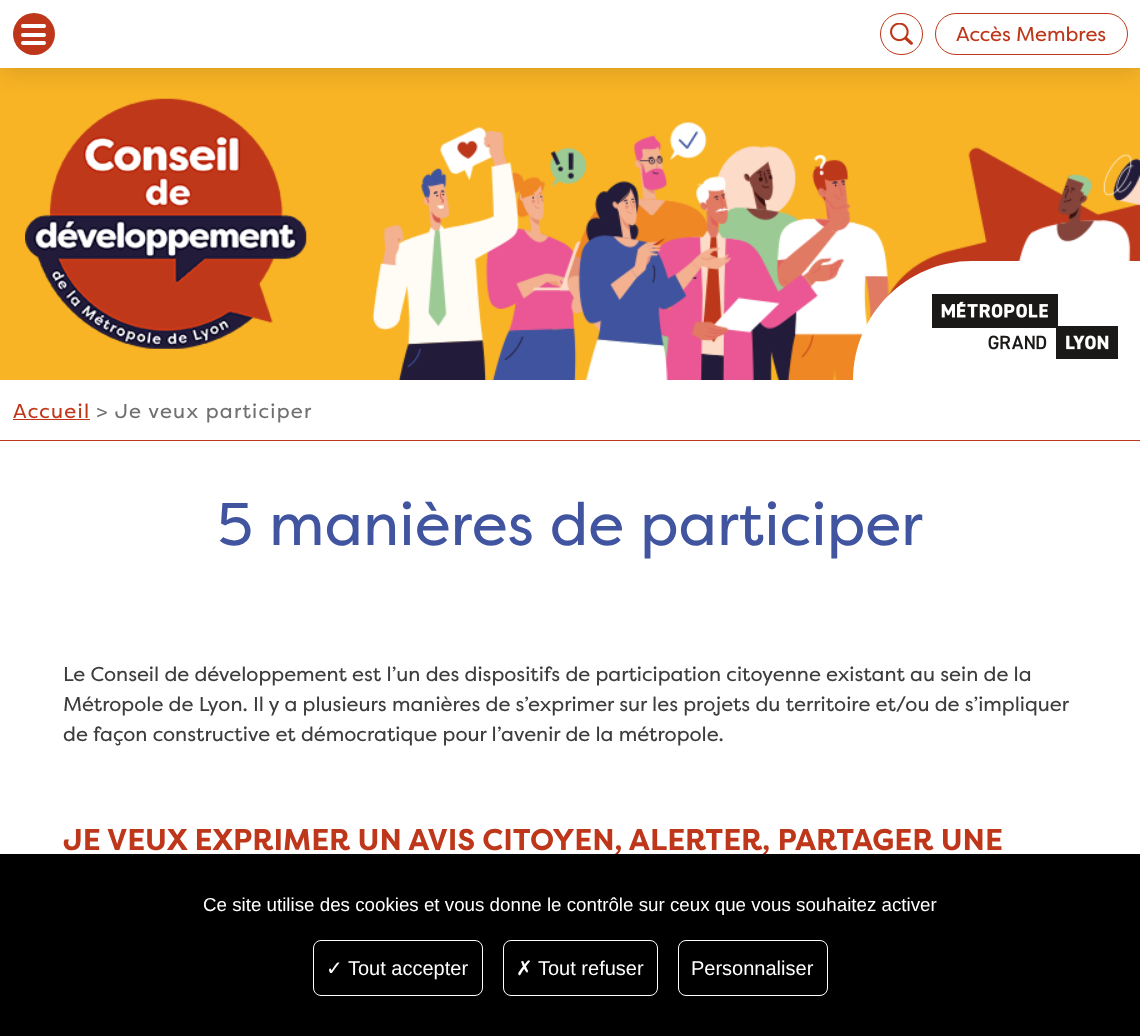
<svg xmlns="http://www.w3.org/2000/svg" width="1140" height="1036">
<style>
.a{font:20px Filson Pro;fill:#be371a}
.b{font:20px Filson Pro;letter-spacing:1.25px;fill:#be371a}
.c{font:20px Filson Pro;letter-spacing:1.25px;fill:#707070}
.d{font:60px Filson Pro;fill:#4054a0}
.e{font:20px Filson Pro;fill:#3d3d3d}
.f{font:bold 30px Filson Pro;fill:#be371a}
.g{font:18.75px Liberation Sans;fill:#fff}
.h{font:20px DejaVu Sans;fill:#fff}
.i{font:20px Liberation Sans;fill:#fff}
</style>
<rect width="100%" height="100%" fill="#fff"/>
<path fill="none" stroke="#f3b024" d="M-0.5 -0.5h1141v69H-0.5z"/>
<image href="2.png" x="0" y="69" width="1140" height="311"/>
<image href="3.png" x="25" y="98" width="282" height="251"/>
<path fill="#0000001a" filter="blur(10px)" d="M3 13h1135v62H3z"/>
<path fill="#fff" d="M0 0h1140v68H0z"/>
<circle fill="#be371a" cx="34" cy="34" r="21"/>
<rect fill="#fff" x="21" y="24" width="25" height="4" rx="2"/>
<rect fill="#fff" x="21" y="33" width="25" height="4" rx="2"/>
<rect fill="#fff" x="21" y="41" width="25" height="4" rx="2"/>
<rect fill="none" stroke="#be371a" x="880.5" y="13.5" width="42" height="41" rx="20.5"/>
<image href="1.png" x="890" y="23" width="23" height="22"/>
<rect fill="none" stroke="#be371a" x="935.5" y="13.5" width="192" height="41" rx="20.5"/>
<path fill="#fff" d="M972 261h168v119h-287c0-65.5 53.5-119 119-119z"/>
<image href="4.png" x="932" y="294" width="186" height="65"/>
<path fill="#be371a" d="M13 419h77v1H13z"/>
<path fill="#be371a" d="M0 440h1140v1H0z"/>
<text class="a" x="956" y="41">Accès Membres</text>
<text class="b" x="13" y="418">Accueil</text>
<text class="c" x="96" y="418">&gt; Je veux participer</text>
<text class="d" x="217" y="545">5 manières de participer</text>
<text class="e" x="63" y="681">Le Conseil de développement est l’un des dispositifs de participation citoyenne existant au sein de la</text>
<text class="e" x="63" y="711">Métropole de Lyon. Il y a plusieurs manières de s’exprimer sur les projets du territoire et/ou de s’impliquer</text>
<text class="e" x="63" y="741">de façon constructive et démocratique pour l’avenir de la métropole.</text>
<text class="f" x="63" y="850">JE VEUX EXPRIMER UN AVIS CITOYEN, ALERTER, PARTAGER UNE</text>
<path fill="#000" d="M0 854h1140v182H0z"/>
<text class="g" x="203" y="911">Ce site utilise des cookies et vous donne le contrôle sur ceux que vous souhaitez activer</text>
<rect fill="none" stroke="#fff" x="313.5" y="940.5" width="169" height="55" rx="7.5"/>
<text class="h" x="326" y="975">✓</text>
<text class="i" x="348" y="975">Tout accepter</text>
<rect fill="none" stroke="#fff" x="503.5" y="940.5" width="154" height="55" rx="7.5"/>
<text class="h" x="516" y="975">✗</text>
<text class="i" x="538" y="975">Tout refuser</text>
<rect fill="none" stroke="#fff" x="678.5" y="940.5" width="149" height="55" rx="7.5"/>
<text class="i" x="691" y="975">Personnaliser</text>
</svg>
